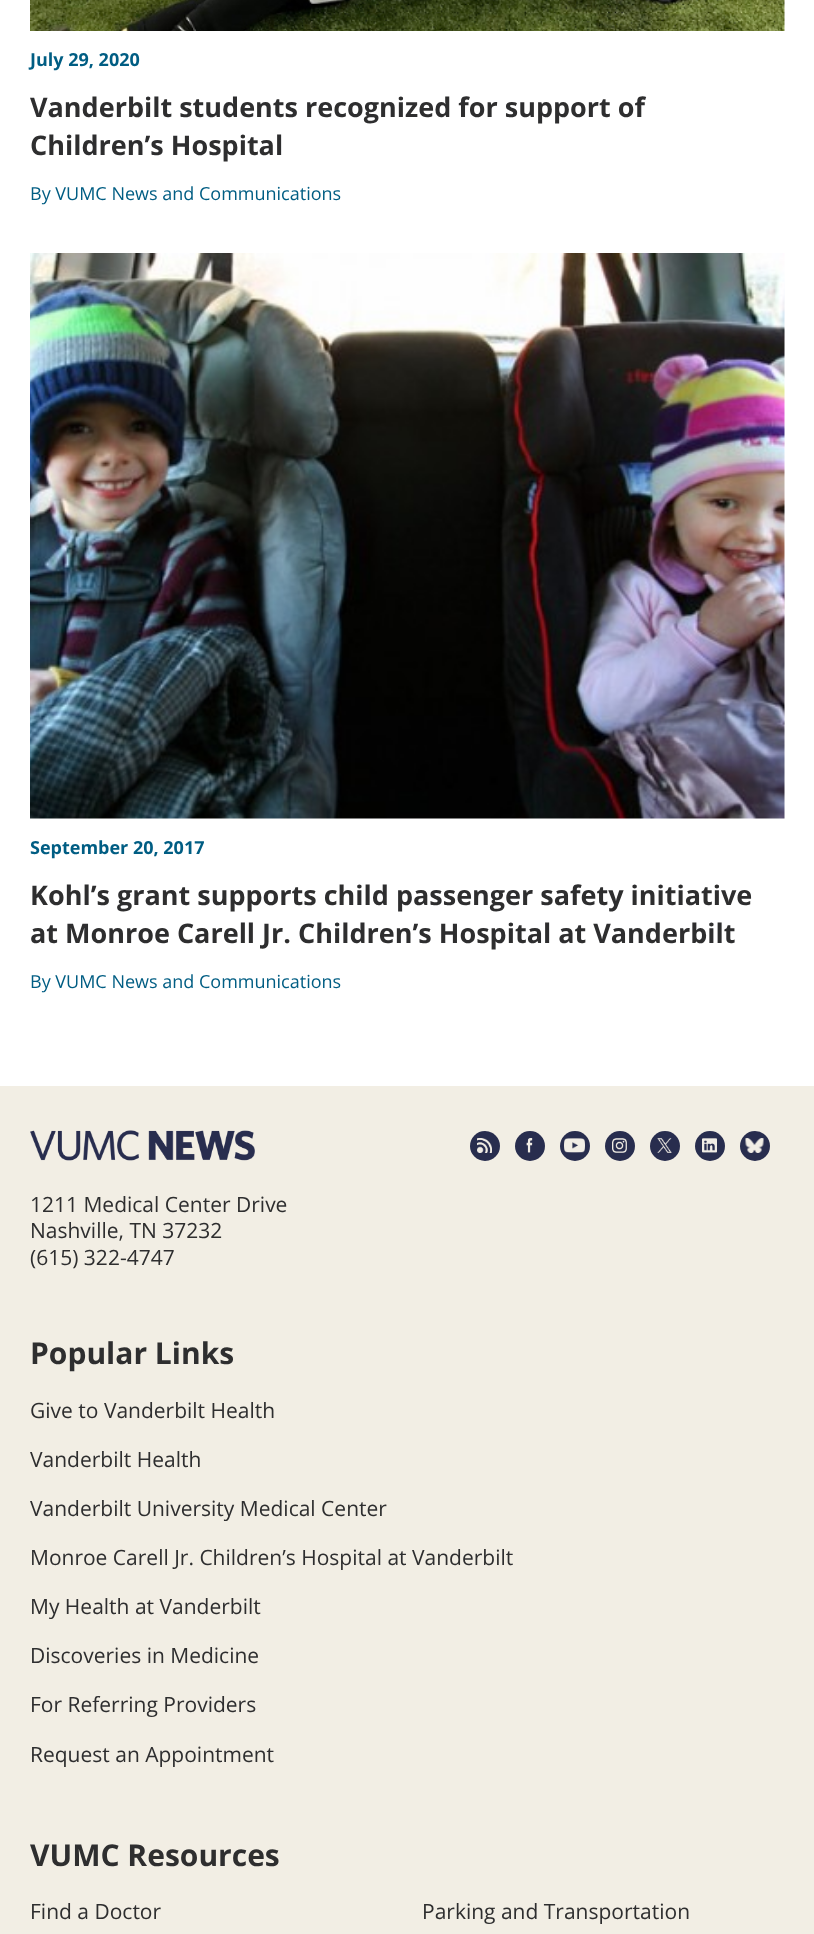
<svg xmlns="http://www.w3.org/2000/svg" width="814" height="1934">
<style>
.a{font:bold 18px Open Sans;fill:#005d83}
.b{font:bold 27px Open Sans;fill:#2e2e2f}
.c{font:18px Open Sans;fill:#005d83}
.d{font:21px Open Sans;fill:#2e2e2f}
.e{font:bold 30px Open Sans;fill:#2e2e2f}
</style>
<rect width="100%" height="100%" fill="#fff"/>
<image href="1.png" x="30" y="0" width="755" height="31"/>
<image href="2.png" x="30" y="253" width="755" height="566"/>
<path fill="#f2eee4" d="M0 1086h814v848H0z"/>
<circle fill="#282d4e" cx="485" cy="1146" r="15"/>
<image href="3.png" x="477" y="1138" width="15" height="15"/>
<circle fill="#282d4e" cx="530" cy="1146" r="15"/>
<image href="4.png" x="526" y="1138" width="7" height="15"/>
<circle fill="#282d4e" cx="575" cy="1146" r="15"/>
<image href="5.png" x="564" y="1138" width="21" height="15"/>
<circle fill="#282d4e" cx="620" cy="1146" r="15"/>
<image href="6.png" x="612" y="1138" width="15" height="15"/>
<circle fill="#282d4e" cx="665" cy="1146" r="15"/>
<image href="7.png" x="657" y="1138" width="15" height="15"/>
<circle fill="#282d4e" cx="710" cy="1146" r="15"/>
<image href="8.png" x="702" y="1138" width="15" height="15"/>
<circle fill="#282d4e" cx="755" cy="1146" r="15"/>
<image href="9.png" x="745" y="1138" width="19" height="15"/>
<image href="10.png" x="30" y="1130" width="225" height="31"/>
<text class="a" x="30" y="66">July 29, 2020</text>
<text class="b" x="30" y="117">Vanderbilt students recognized for support of</text>
<text class="b" x="30" y="155">Children’s Hospital</text>
<text class="c" x="30" y="200">By VUMC News and Communications</text>
<text class="a" x="30" y="854">September 20, 2017</text>
<text class="b" x="30" y="905">Kohl’s grant supports child passenger safety initiative</text>
<text class="b" x="30" y="943">at Monroe Carell Jr. Children’s Hospital at Vanderbilt</text>
<text class="c" x="30" y="988">By VUMC News and Communications</text>
<text class="d" x="30" y="1212">1211 Medical Center Drive</text>
<text class="d" x="30" y="1238">Nashville, TN 37232</text>
<text class="d" x="30" y="1265">(615) 322-4747</text>
<text class="e" x="30" y="1364">Popular Links</text>
<text class="d" x="30" y="1418">Give to Vanderbilt Health</text>
<text class="d" x="30" y="1467">Vanderbilt Health</text>
<text class="d" x="30" y="1516">Vanderbilt University Medical Center</text>
<text class="d" x="30" y="1565">Monroe Carell Jr. Children’s Hospital at Vanderbilt</text>
<text class="d" x="30" y="1614">My Health at Vanderbilt</text>
<text class="d" x="30" y="1663">Discoveries in Medicine</text>
<text class="d" x="30" y="1712">For Referring Providers</text>
<text class="d" x="30" y="1762">Request an Appointment</text>
<text class="e" x="30" y="1866">VUMC Resources</text>
<text class="d" x="30" y="1919">Find a Doctor</text>
<text class="d" x="422" y="1919">Parking and Transportation</text>
</svg>
